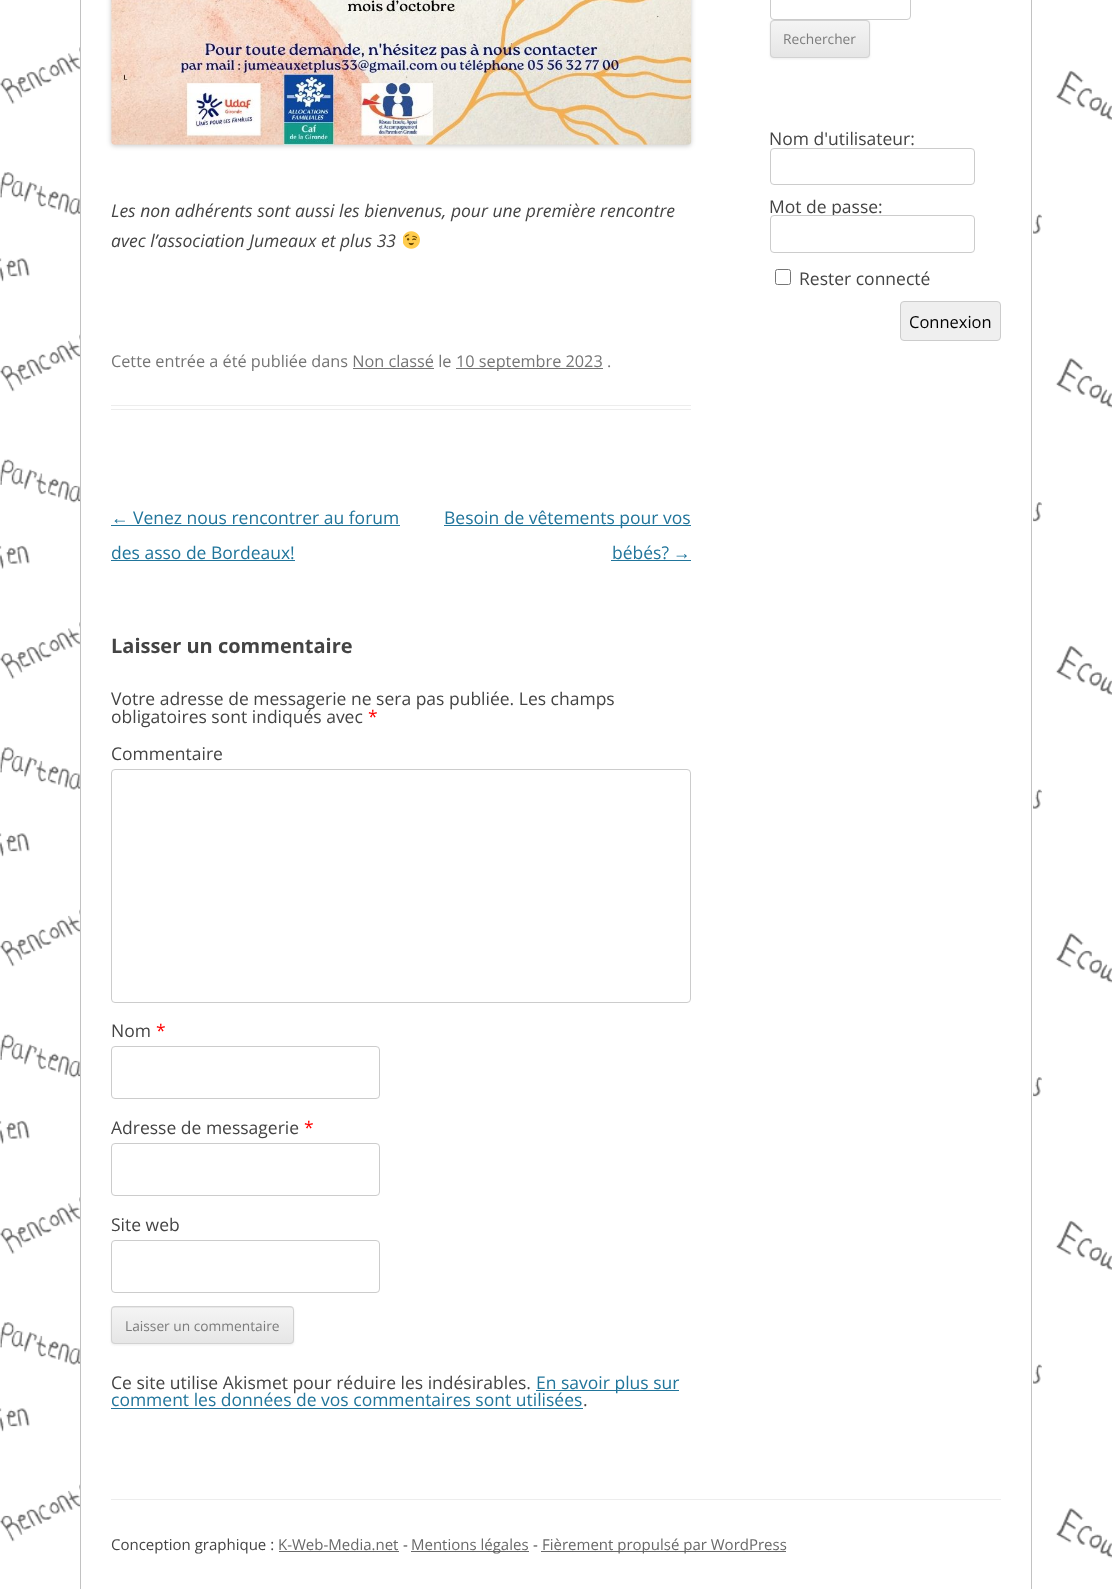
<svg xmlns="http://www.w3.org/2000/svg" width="1112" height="1589">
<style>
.a{font:italic 17.5px Open Sans;fill:#444}
.b{font:16.25px Open Sans;fill:#757575}
.c{font:17.5px Liberation Sans;fill:#21759b}
.d{font:17.5px Open Sans;fill:#21759b}
.e{font:bold 20px Open Sans;fill:#444}
.f{font:17.5px Open Sans;fill:#444}
.g{font:17.5px Open Sans;fill:#f00}
.h{font:13.75px Open Sans;fill:#7c7c7c}
.i{font:16.5px Open Sans;fill:#000}
.j{font:15px Open Sans;fill:#444}
.k{font:15px Open Sans;fill:#686868}
</style>
<defs>
<clipPath id="clip1"><rect x="111" y="1306" width="183" height="38" rx="4"/></clipPath>
<linearGradient id="g1" gradientUnits="userSpaceOnUse" x1="203" y1="1308" x2="203" y2="1343"><stop offset="0" stop-color="#f4f4f4"/><stop offset="1" stop-color="#e6e6e6"/></linearGradient>
<clipPath id="clip2"><rect x="770" y="20" width="100" height="38" rx="4"/></clipPath>
<linearGradient id="g2" gradientUnits="userSpaceOnUse" x1="820" y1="21" x2="820" y2="56"><stop offset="0" stop-color="#f4f4f4"/><stop offset="1" stop-color="#e6e6e6"/></linearGradient>
</defs>
<rect width="100%" height="100%" fill="#fff"/>
<image href="1.png" x="0" y="37" width="1112" height="1552"/>
<path fill="#fff" d="M81 37h952v1552H81z"/>
<path fill="#c2c2c2" d="M1031 0h1v1589H1031z"/>
<path fill="#c2c2c2" d="M80 0h1v1589H80z"/>
<path fill="#ededed" d="M111 405h580v1H111z"/>
<path fill="#ededed" d="M111 409h580v1H111z"/>
<rect fill="#00000033" filter="blur(2.5px)" x="111" y="-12" width="580" height="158" rx="4"/>
<image href="2.png" x="111" y="0" width="581" height="145"/>
<image href="3.png" x="403" y="231" width="17" height="18"/>
<path fill="#757575" d="M456 368h147v1H456z"/>
<path fill="#757575" d="M353 368h81v1H353z"/>
<path fill="#21759b" d="M111 525h289v1H111z"/>
<path fill="#21759b" d="M111 560h184v1H111z"/>
<path fill="#21759b" d="M444 525h247v1H444z"/>
<path fill="#21759b" d="M611 560h80v1H611z"/>
<rect fill="none" stroke="#ccc" x="111.5" y="769.5" width="579" height="233" rx="3.5"/>
<rect fill="none" stroke="#ccc" x="111.5" y="1046.5" width="268" height="52" rx="3.5"/>
<rect fill="none" stroke="#ccc" x="111.5" y="1143.5" width="268" height="52" rx="3.5"/>
<rect fill="none" stroke="#ccc" x="111.5" y="1240.5" width="268" height="52" rx="3.5"/>
<rect fill="#4040401a" filter="blur(1px)" x="111" y="1308" width="183" height="37" rx="4"/>
<rect fill="#e6e6e6" x="111" y="1306" width="183" height="38" rx="4"/>
<g clip-path="url(#clip1)">
<path fill="url(#g1)" d="M111 1308h183v35H111z"/>
</g>
<rect fill="none" stroke="#d2d2d2" x="111.5" y="1306.5" width="182" height="37" rx="3.5"/>
<path fill="#21759b" d="M536 1390h143v1H536z"/>
<path fill="#21759b" d="M111 1408h472v1H111z"/>
<rect fill="none" stroke="#ccc" x="770.5" y="-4.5" width="140" height="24" rx="3.5"/>
<rect fill="#4040401a" filter="blur(1px)" x="770" y="21" width="100" height="38" rx="4"/>
<rect fill="#e6e6e6" x="770" y="20" width="100" height="38" rx="4"/>
<g clip-path="url(#clip2)">
<path fill="url(#g2)" d="M770 21h100v35H770z"/>
</g>
<rect fill="none" stroke="#d2d2d2" x="770.5" y="20.5" width="99" height="37" rx="3.5"/>
<rect fill="none" stroke="#ccc" x="770.5" y="148.5" width="204" height="36" rx="3.5"/>
<rect fill="none" stroke="#767676" x="775.5" y="269.5" width="15" height="15" rx="2"/>
<rect fill="#efefef" stroke="#ccc" x="900.5" y="301.5" width="100" height="39" rx="3.5"/>
<path fill="#ededed" d="M111 1499h890v1H111z"/>
<path fill="#686868" d="M279 1551h120v1H279z"/>
<path fill="#686868" d="M411 1551h118v1H411z"/>
<path fill="#686868" d="M541 1551h245v1H541z"/>
<text class="a" x="111" y="217">Les non adhérents sont aussi les bienvenus, pour une première rencontre</text>
<text class="a" x="111" y="247">avec l’association Jumeaux et plus 33</text>
<text class="b" x="111" y="367">Cette entrée a été publiée dans Non classé le</text>
<text class="b" x="456" y="367">10 septembre 2023 .</text>
<text class="c" x="111" y="524">←</text>
<text class="d" x="133" y="524">Venez nous rencontrer au forum</text>
<text class="d" x="111" y="559">des asso de Bordeaux!</text>
<text class="d" x="444" y="524">Besoin de vêtements pour vos</text>
<text class="d" x="612" y="559">bébés?</text>
<text class="c" x="673" y="559">→</text>
<text class="e" x="111" y="653">Laisser un commentaire</text>
<text class="f" x="111" y="705">Votre adresse de messagerie ne sera pas publiée. Les champs</text>
<text class="f" x="111" y="723">obligatoires sont indiqués avec</text>
<text class="g" x="368" y="723">*</text>
<text class="f" x="111" y="760">Commentaire</text>
<text class="f" x="111" y="1037">Nom</text>
<text class="g" x="156" y="1037">*</text>
<text class="f" x="111" y="1134">Adresse de messagerie</text>
<text class="g" x="304" y="1134">*</text>
<text class="f" x="111" y="1231">Site web</text>
<text class="h" x="125" y="1331">Laisser un commentaire</text>
<text class="f" x="111" y="1389">Ce site utilise Akismet pour réduire les indésirables.</text>
<text class="d" x="536" y="1389">En savoir plus sur</text>
<text class="d" x="111" y="1406">comment les données de vos commentaires sont utilisées</text>
<text class="f" x="583" y="1406">.</text>
<text class="h" x="783" y="44">Rechercher</text>
<text class="f" x="769" y="145">Nom d'utilisateur:</text>
<text class="f" x="769" y="213">Mot de passe:</text>
<rect fill="#fff" stroke="#ccc" x="770.5" y="215.5" width="204" height="37" rx="3.5"/>
<text class="f" x="799" y="285">Rester connecté</text>
<text class="i" x="909" y="328">Connexion</text>
<text class="j" x="111" y="1550">Conception graphique :</text>
<text class="k" x="278" y="1550">K-Web-Media.net</text>
<text class="j" x="403" y="1550">-</text>
<text class="k" x="411" y="1550">Mentions légales</text>
<text class="j" x="533" y="1550">-</text>
<text class="k" x="542" y="1550">Fièrement propulsé par WordPress</text>
</svg>
